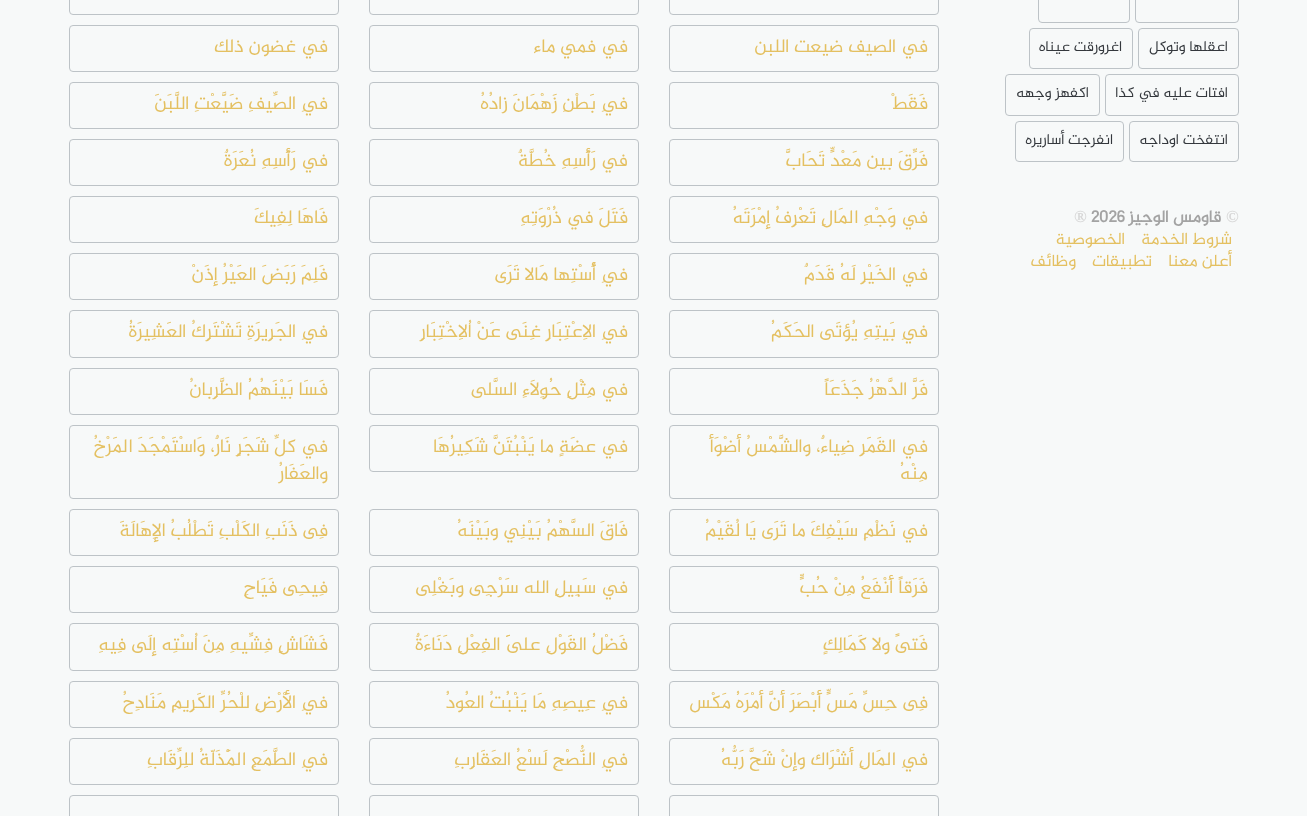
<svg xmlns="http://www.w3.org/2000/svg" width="1307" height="816">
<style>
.a{font:15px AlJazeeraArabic;direction:rtl;fill:#34383d}
.b{font:bold 17px Liberation Serif;fill:#d6d6d6}
.c{font:bold 17px AlJazeeraArabic;direction:rtl;fill:#a3a3a3}
.d{font:bold 17px AlJazeeraArabic;fill:#a3a3a3}
.e{font:17px AlJazeeraArabic;direction:rtl;fill:#e4c061}
.f{font:19.1px AlJazeeraArabic;direction:rtl;fill:#e4c061}
</style>
<rect width="100%" height="100%" fill="#f7f9f9"/>
<rect fill="none" stroke="#bdc3c7" x="1135.5" y="-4.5" width="103" height="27" rx="3.5"/>
<rect fill="none" stroke="#bdc3c7" x="1038.5" y="-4.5" width="91" height="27" rx="3.5"/>
<rect fill="none" stroke="#bdc3c7" x="1138.5" y="28.5" width="100" height="40" rx="3.5"/>
<rect fill="none" stroke="#bdc3c7" x="1029.5" y="28.5" width="103" height="40" rx="3.5"/>
<rect fill="none" stroke="#bdc3c7" x="1105.5" y="74.5" width="133" height="41" rx="3.5"/>
<rect fill="none" stroke="#bdc3c7" x="1005.5" y="74.5" width="94" height="41" rx="3.5"/>
<rect fill="none" stroke="#bdc3c7" x="1129.5" y="121.5" width="109" height="40" rx="3.5"/>
<rect fill="none" stroke="#bdc3c7" x="1015.5" y="121.5" width="108" height="40" rx="3.5"/>
<rect fill="none" stroke="#bdc3c7" x="669.5" y="-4.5" width="269" height="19" rx="3.5"/>
<rect fill="none" stroke="#bdc3c7" x="369.5" y="-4.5" width="269" height="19" rx="3.5"/>
<rect fill="none" stroke="#bdc3c7" x="69.5" y="-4.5" width="269" height="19" rx="3.5"/>
<rect fill="none" stroke="#bdc3c7" x="669.5" y="25.5" width="269" height="46" rx="3.5"/>
<rect fill="none" stroke="#bdc3c7" x="369.5" y="25.5" width="269" height="46" rx="3.5"/>
<rect fill="none" stroke="#bdc3c7" x="69.5" y="25.5" width="269" height="46" rx="3.5"/>
<rect fill="none" stroke="#bdc3c7" x="669.5" y="82.5" width="269" height="46" rx="3.5"/>
<rect fill="none" stroke="#bdc3c7" x="369.5" y="82.5" width="269" height="46" rx="3.5"/>
<rect fill="none" stroke="#bdc3c7" x="69.5" y="82.5" width="269" height="46" rx="3.5"/>
<rect fill="none" stroke="#bdc3c7" x="669.5" y="139.5" width="269" height="46" rx="3.5"/>
<rect fill="none" stroke="#bdc3c7" x="369.5" y="139.5" width="269" height="46" rx="3.5"/>
<rect fill="none" stroke="#bdc3c7" x="69.5" y="139.5" width="269" height="46" rx="3.5"/>
<rect fill="none" stroke="#bdc3c7" x="669.5" y="196.5" width="269" height="46" rx="3.5"/>
<rect fill="none" stroke="#bdc3c7" x="369.5" y="196.5" width="269" height="46" rx="3.5"/>
<rect fill="none" stroke="#bdc3c7" x="69.5" y="196.5" width="269" height="46" rx="3.5"/>
<rect fill="none" stroke="#bdc3c7" x="669.5" y="253.5" width="269" height="46" rx="3.5"/>
<rect fill="none" stroke="#bdc3c7" x="369.5" y="253.5" width="269" height="46" rx="3.5"/>
<rect fill="none" stroke="#bdc3c7" x="69.5" y="253.5" width="269" height="46" rx="3.5"/>
<rect fill="none" stroke="#bdc3c7" x="669.5" y="310.5" width="269" height="47" rx="3.5"/>
<rect fill="none" stroke="#bdc3c7" x="369.5" y="310.5" width="269" height="47" rx="3.5"/>
<rect fill="none" stroke="#bdc3c7" x="69.5" y="310.5" width="269" height="47" rx="3.5"/>
<rect fill="none" stroke="#bdc3c7" x="669.5" y="368.5" width="269" height="46" rx="3.5"/>
<rect fill="none" stroke="#bdc3c7" x="369.5" y="368.5" width="269" height="46" rx="3.5"/>
<rect fill="none" stroke="#bdc3c7" x="69.5" y="368.5" width="269" height="46" rx="3.5"/>
<rect fill="none" stroke="#bdc3c7" x="669.5" y="425.5" width="269" height="73" rx="3.5"/>
<rect fill="none" stroke="#bdc3c7" x="369.5" y="425.5" width="269" height="46" rx="3.5"/>
<rect fill="none" stroke="#bdc3c7" x="69.5" y="425.5" width="269" height="73" rx="3.5"/>
<rect fill="none" stroke="#bdc3c7" x="669.5" y="509.5" width="269" height="46" rx="3.5"/>
<rect fill="none" stroke="#bdc3c7" x="369.5" y="509.5" width="269" height="46" rx="3.5"/>
<rect fill="none" stroke="#bdc3c7" x="69.5" y="509.5" width="269" height="46" rx="3.5"/>
<rect fill="none" stroke="#bdc3c7" x="669.5" y="566.5" width="269" height="46" rx="3.5"/>
<rect fill="none" stroke="#bdc3c7" x="369.5" y="566.5" width="269" height="46" rx="3.5"/>
<rect fill="none" stroke="#bdc3c7" x="69.5" y="566.5" width="269" height="46" rx="3.5"/>
<rect fill="none" stroke="#bdc3c7" x="669.5" y="623.5" width="269" height="47" rx="3.5"/>
<rect fill="none" stroke="#bdc3c7" x="369.5" y="623.5" width="269" height="47" rx="3.5"/>
<rect fill="none" stroke="#bdc3c7" x="69.5" y="623.5" width="269" height="47" rx="3.5"/>
<rect fill="none" stroke="#bdc3c7" x="669.5" y="681.5" width="269" height="46" rx="3.5"/>
<rect fill="none" stroke="#bdc3c7" x="369.5" y="681.5" width="269" height="46" rx="3.5"/>
<rect fill="none" stroke="#bdc3c7" x="69.5" y="681.5" width="269" height="46" rx="3.5"/>
<rect fill="none" stroke="#bdc3c7" x="669.5" y="738.5" width="269" height="46" rx="3.5"/>
<rect fill="none" stroke="#bdc3c7" x="369.5" y="738.5" width="269" height="46" rx="3.5"/>
<rect fill="none" stroke="#bdc3c7" x="69.5" y="738.5" width="269" height="46" rx="3.5"/>
<rect fill="none" stroke="#bdc3c7" x="669.5" y="795.5" width="269" height="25" rx="3.5"/>
<rect fill="none" stroke="#bdc3c7" x="369.5" y="795.5" width="269" height="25" rx="3.5"/>
<rect fill="none" stroke="#bdc3c7" x="69.5" y="795.5" width="269" height="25" rx="3.5"/>
<text class="a" x="1228" y="51">اعقلها وتوكل</text>
<text class="a" x="1122" y="51">اغرورقت عيناه</text>
<text class="a" x="1228" y="97">افتات عليه في كذا</text>
<text class="a" x="1089" y="97">اكفهز وجهه</text>
<text class="a" x="1228" y="144">انتفخت اوداجه</text>
<text class="a" x="1113" y="144">انفرجت أساريره</text>
<text class="b" x="1226" y="222">©</text>
<text class="c" x="1221" y="222">قاومس الوجيز</text>
<text class="d" x="1091" y="222">2026</text>
<text class="b" x="1074" y="222">®</text>
<text class="e" x="1232" y="244">شروط الخدمة</text>
<text class="e" x="1125" y="244">الخصوصية</text>
<text class="e" x="1232" y="266">أعلن معنا</text>
<text class="e" x="1152" y="266">تطبيقات</text>
<text class="e" x="1076" y="266">وظائف</text>
<text class="f" x="928" y="52">في الصيف ضيعت اللبن</text>
<text class="f" x="628" y="52">في فمي ماء</text>
<text class="f" x="328" y="52">في غضون ذلك</text>
<text class="f" x="928" y="109">فَقَطْ</text>
<text class="f" x="628" y="109">فِي بَطْنِ زَهْمَانَ زادُهُ</text>
<text class="f" x="328" y="109">فِي الصِّيفِ ضَيَّعْتِ اللَّبَنَ</text>
<text class="f" x="928" y="166">فَرِّقَ بين مَعْدٍّ تَحَابَّ</text>
<text class="f" x="628" y="166">في رَأْسِهِ خُطَّةٌ</text>
<text class="f" x="328" y="166">في رَأْسِهِ نُعَرَةٌ</text>
<text class="f" x="928" y="223">في وَجْهِ المَالِ تَعْرِفُ إمْرَتَهُ</text>
<text class="f" x="628" y="223">فَتَلَ في ذُرْوَتِهِ</text>
<text class="f" x="328" y="223">فَاهَا لِفِيكَ</text>
<text class="f" x="928" y="280">في الخَيْرِ لَهُ قَدَمٌ</text>
<text class="f" x="628" y="280">فِي أُسْتِها مَالا تَرَى</text>
<text class="f" x="328" y="280">فَلِمَ رَبَضَ العَيْرُ إذَنْ</text>
<text class="f" x="928" y="337">فِي بَيتِهِ يُؤتَى الحَكَمُ</text>
<text class="f" x="628" y="337">فيِ الاِعْتِبَارِ غِنَى عَنْ اُلاِخْتِبَارِ</text>
<text class="f" x="328" y="337">فِي الجَرِيرَةِ تَشْتَرِكُ العَشِيرَةُ</text>
<text class="f" x="928" y="395">فَرَّ الدَّهْرُ جَذَعَاً</text>
<text class="f" x="628" y="395">في مِثْلِ حُوِلاَءِ السَّلى</text>
<text class="f" x="328" y="395">فَسَا بَيْنَهُمُ الظَّرِبانُ</text>
<text class="f" x="928" y="452">في القَمَرِ ضِياءٌ، والشَّمْسُ أضْوَأ</text>
<text class="f" x="928" y="479">مِنْهُ</text>
<text class="f" x="628" y="452">في عضَةٍ ما يَنْبُتَنَّ شَكِيرُهَا</text>
<text class="f" x="328" y="452">في كلِّ شَجَرٍ نَارٌ، وَاسْتَمْجَدَ المَرْخُ</text>
<text class="f" x="328" y="479">والعَفَارُ</text>
<text class="f" x="928" y="536">في نَظْمِ سَيْفِكَ ما تَرَى يَا لُقَيْمُ</text>
<text class="f" x="628" y="536">فَاقَ السَّهْمُ بَيْنِي وبَيْنَهُ</text>
<text class="f" x="328" y="536">فِى ذَنَبِ الكَلْبِ تَطْلُبُ الإِهَالَةَ</text>
<text class="f" x="928" y="593">فَرَقاً أَنْفَعُ مِنْ حُبٍّ</text>
<text class="f" x="628" y="593">في سَبِيلِ الله سَرْجِى وبَغْلِى</text>
<text class="f" x="328" y="593">فِيحِى فَيَاحِ</text>
<text class="f" x="928" y="650">فَتىً ولا كَمَالِكٍ</text>
<text class="f" x="628" y="650">فَضْلُ القَوْلِ عَلَى الفِعْلِ دَنَاءَةٌ</text>
<text class="f" x="328" y="650">فَشَاشِ فِشِّيهِ مِنَ اُسْتِه إلَى فِيهِ</text>
<text class="f" x="928" y="708">فِى حِسِّ مَسٍّ أَبْصَرَ أنَّ أمْرَهُ مَكْس</text>
<text class="f" x="628" y="708">فِي عِيصِهِ مَا يَنْبُتُ العُودُ</text>
<text class="f" x="328" y="708">فِي الأْرْضِ للْحُرِّ الكَرِيمِ مَنَادِحُ</text>
<text class="f" x="928" y="765">فِي المَالِ أشْرَاك وإنْ شَحَّ رَبُّهُ</text>
<text class="f" x="628" y="765">فِي النُّصْحِ لَسْعُ العَقَارِبِ</text>
<text class="f" x="328" y="765">فِي الطَّمَعِ الْمَذَلّةُ للِرِّقَابِ</text>
</svg>
